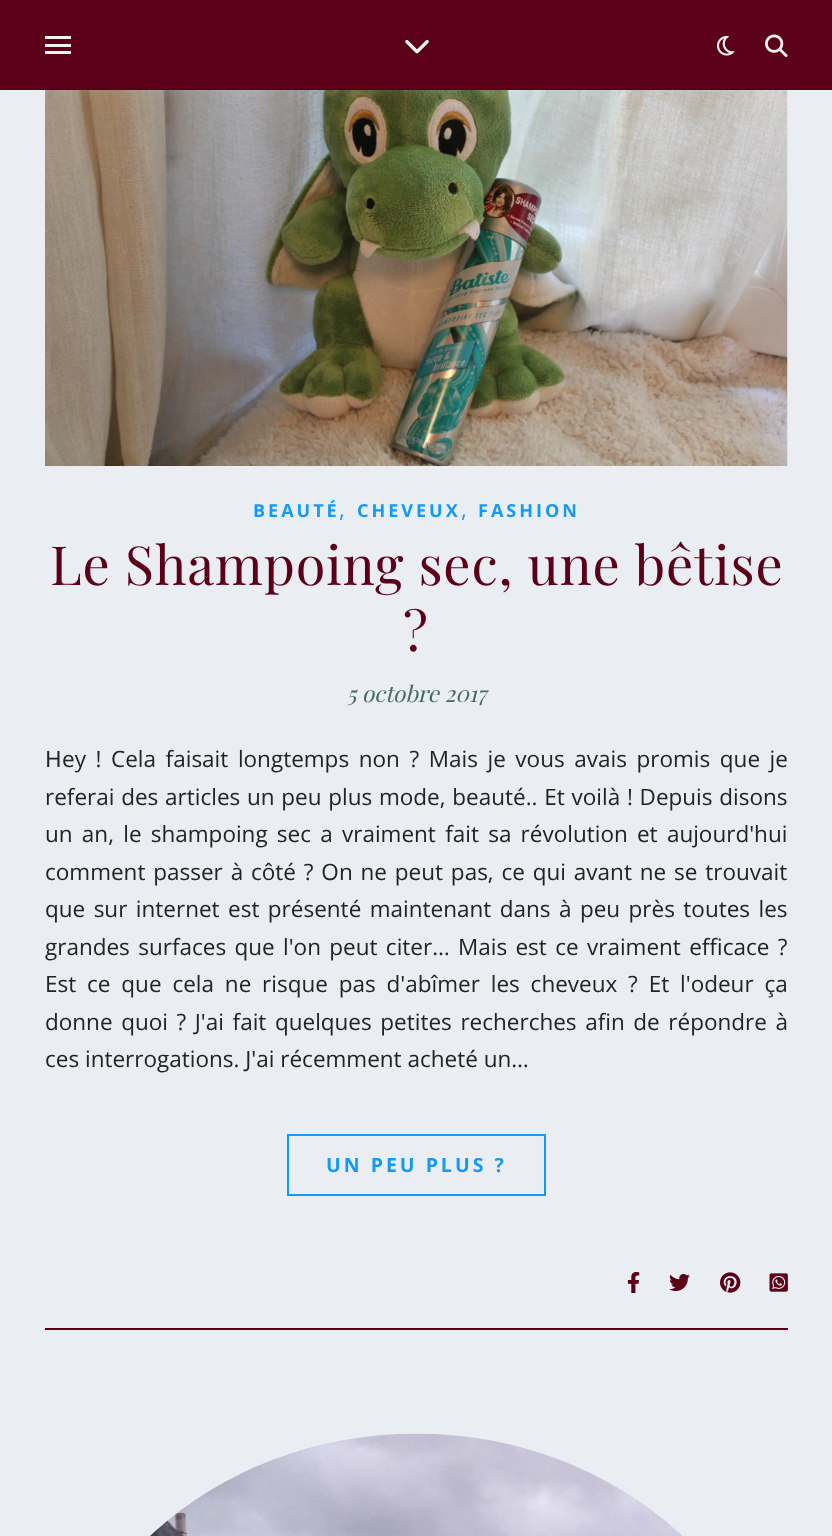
<svg xmlns="http://www.w3.org/2000/svg" width="832" height="1536">
<style>
.a{font:bold 18px Open Sans;letter-spacing:3px;fill:#139af4}
.b{font:22.5px Open Sans;fill:#139af4}
.c{font:54px Playfair Display;letter-spacing:0.75px;fill:#5b0018}
.d{font:italic 22.5px Playfair Display;fill:#446b68}
.e{font:22.5px Noto Sans;fill:#232323}
.f{font:22.5px Open Sans;fill:#232323}
.g{font:bold 19.5px Open Sans;letter-spacing:3px;fill:#139af4}
</style>
<rect width="100%" height="100%" fill="#eaeef2"/>
<image href="4.png" x="45" y="90" width="743" height="376"/>
<path fill="#f2f2f21a" filter="blur(4px)" d="M0 2h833v90H0z"/>
<path fill="#5b0018" d="M0 0h832v90H0z"/>
<path fill="#f2f2f2" d="M45 36h26v3H45z"/>
<path fill="#f2f2f2" d="M45 44h26v3H45z"/>
<path fill="#f2f2f2" d="M45 51h26v3H45z"/>
<image href="1.png" x="405" y="40" width="24" height="14"/>
<image href="2.png" x="716" y="35" width="19" height="21"/>
<image href="3.png" x="765" y="34" width="23" height="23"/>
<path fill="none" stroke="#139af4" stroke-width="2" d="M288 1135h257v60H288z"/>
<path fill="#5b0018" d="M45 1328h743v2H45z"/>
<image href="5.png" x="627" y="1272" width="13" height="21"/>
<image href="6.png" x="669" y="1274" width="21" height="17"/>
<image href="7.png" x="720" y="1272" width="21" height="21"/>
<image href="8.png" x="769" y="1273" width="19" height="19"/>
<image href="9.png" x="150" y="1433" width="533" height="103"/>
<text class="a" x="253" y="517">BEAUTÉ</text>
<text class="b" x="339" y="517">,</text>
<text class="a" x="357" y="517">CHEVEUX</text>
<text class="b" x="461" y="517">,</text>
<text class="a" x="478" y="517">FASHION</text>
<text class="c" x="50" y="585">Le Shampoing sec, une bêtise</text>
<text class="c" x="403" y="651">?</text>
<text class="d" x="347" y="702">5 octobre 2017</text>
<text class="e" x="45" y="767">H</text>
<text class="f" x="62" y="767" word-spacing="3.75">ey ! Cela faisait longtemps non ? Mais je vous avais promis que je</text>
<text class="f" x="45" y="805" word-spacing="0.9">referai des articles un peu plus mode, beauté.. Et voilà ! Depuis disons</text>
<text class="f" x="45" y="842" word-spacing="3.4">un an, le shampoing sec a vraiment fait sa révolution et aujourd'hui</text>
<text class="f" x="45" y="880" word-spacing="2">comment passer à côté ? On ne peut pas, ce qui avant ne se trouvait</text>
<text class="f" x="45" y="917" word-spacing="2.6">que sur internet est présenté maintenant dans à peu près toutes les</text>
<text class="f" x="45" y="955" word-spacing="2.5">grandes surfaces que l'on peut citer… Mais est ce vraiment efficace ?</text>
<text class="f" x="45" y="992" word-spacing="5">Est ce que cela ne risque pas d'abîmer les cheveux ? Et l'odeur ça</text>
<text class="f" x="45" y="1030" word-spacing="2.75">donne quoi ? J'ai fait quelques petites recherches afin de répondre à</text>
<text class="f" x="45" y="1067">ces interrogations. J'ai récemment acheté un…</text>
<text class="g" x="326" y="1172">UN PEU PLUS ?</text>
</svg>
